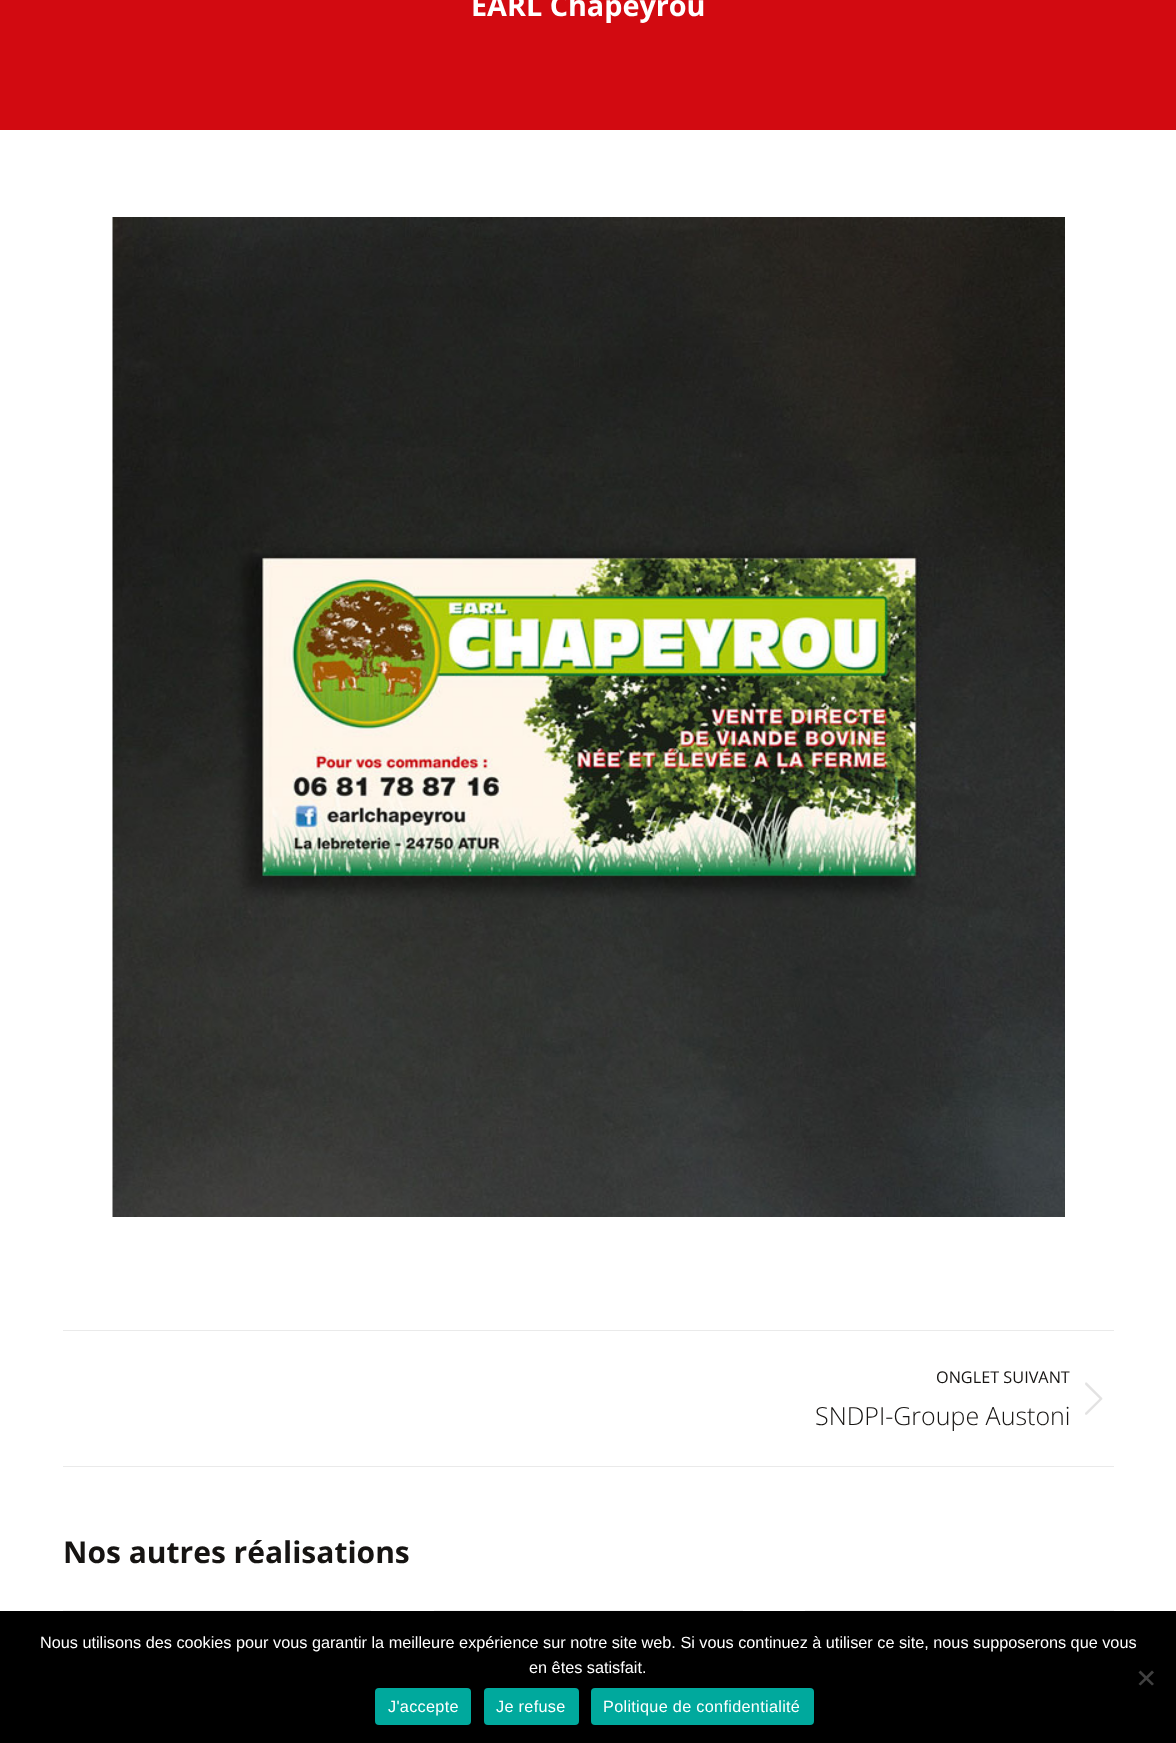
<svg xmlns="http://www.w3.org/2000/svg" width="1176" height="1743">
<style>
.a{font:bold 28.75px Open Sans;fill:#fff}
.b{font:16.25px Open Sans;fill:#161412}
.c{font:300 25px Open Sans;fill:#161412}
.d{font:bold 30px Open Sans;fill:#161412}
.e{font:16.25px Liberation Sans;fill:#fff}
.f{font:16.25px Liberation Sans;letter-spacing:0.3px;fill:#fff}
</style>
<rect width="100%" height="100%" fill="#fff"/>
<path fill="#d20a11" d="M0 0h1176v130H0z"/>
<image href="1.png" x="112" y="217" width="953" height="1000"/>
<path fill="#eaeaea" d="M63 1330h1051v1H63z"/>
<path fill="#eaeaea" d="M63 1466h1051v1H63z"/>
<image href="2.png" x="1085" y="1382" width="18" height="33"/>
<path fill="#f3f3f3" d="M63 1610h308v1H63z"/>
<path fill="#f3f3f3" d="M434 1610h309v1H434z"/>
<path fill="#f3f3f3" d="M805 1610h309v1H805z"/>
<path fill="#000" d="M0 1611h1176v132H0z"/>
<path fill="#404040" d="M1152 1670.5l2 2l-13.5 13l-2-1.5z"/>
<path fill="#404040" d="M1138.5 1672.5l2-2l13.5 13.5l-2 1.5z"/>
<rect fill="#00a99d" x="375" y="1688" width="96" height="37" rx="4"/>
<rect fill="#00a99d" x="484" y="1688" width="95" height="37" rx="4"/>
<rect fill="#00a99d" x="591" y="1688" width="223" height="37" rx="4"/>
<text class="a" x="471" y="16">EARL Chapeyrou</text>
<text class="b" x="936" y="1383">ONGLET SUIVANT</text>
<text class="c" x="815" y="1425">SNDPI-Groupe Austoni</text>
<text class="d" x="63" y="1563">Nos autres réalisations</text>
<text class="e" x="40" y="1648">Nous utilisons des cookies pour vous garantir la meilleure expérience sur notre site web. Si vous continuez à utiliser ce site, nous supposerons que vous</text>
<text class="e" x="529" y="1673">en êtes satisfait.</text>
<text class="f" x="388" y="1712">J'accepte</text>
<text class="f" x="496" y="1712">Je refuse</text>
<text class="f" x="603" y="1712">Politique de confidentialité</text>
</svg>
